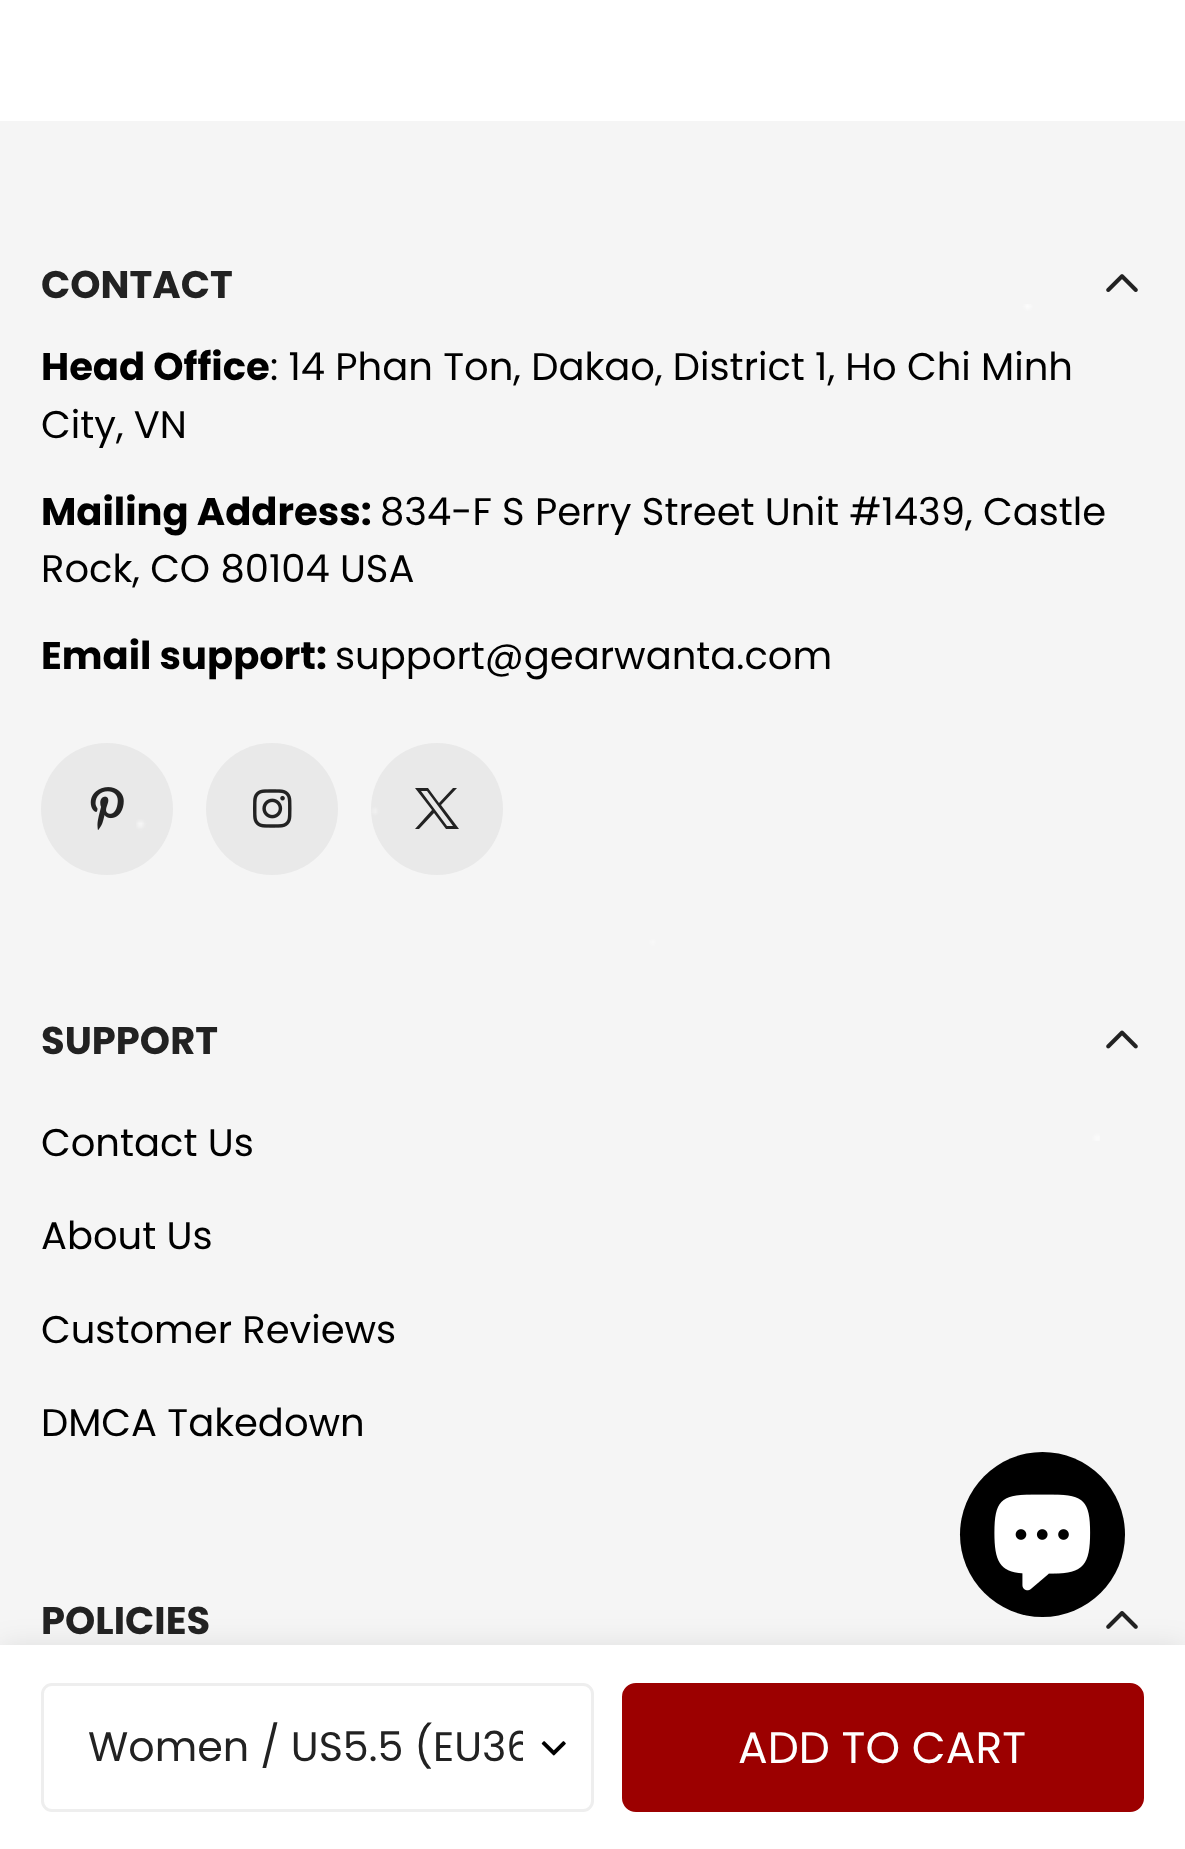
<svg xmlns="http://www.w3.org/2000/svg" width="1185" height="1849">
<style>
.a{font:bold 38.5px Poppins;fill:#222}
.b{font:bold 38.5px Poppins;fill:#000}
.c{font:38.5px Poppins;fill:#000}
.d{font:41.25px Poppins;fill:#222}
.e{font:44px Poppins;fill:#fff}
</style>
<defs>
<clipPath id="clip1"><path d="M88 1716h435v63H88z"/></clipPath>
</defs>
<rect width="100%" height="100%" fill="#fff"/>
<path fill="#f5f5f5" d="M0 121h1185v1524H0z"/>
<image href="1.png" x="1106" y="274" width="32" height="18"/>
<circle fill="#e9e9e9" cx="107" cy="809" r="66"/>
<image href="2.png" x="90" y="787" width="34" height="43"/>
<circle fill="#e9e9e9" cx="272" cy="809" r="66"/>
<image href="3.png" x="253" y="789" width="39" height="39"/>
<circle fill="#e9e9e9" cx="437" cy="809" r="66"/>
<path fill="#222" d="M415 788l17 22l-17 19h4l15-16l12 16h13l-18-24l16-17h-4l-14 15l-11-15zm6 3h6l26 35h-6z"/>
<image href="4.png" x="1106" y="1030" width="32" height="19"/>
<image href="5.png" x="1106" y="1611" width="32" height="18"/>
<path fill="#00000017" filter="blur(14px)" d="M0 1645h1185v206H0z"/>
<circle fill="#000" cx="1042.5" cy="1534.5" r="82.5"/>
<image href="7.png" x="994" y="1494" width="97" height="97"/>
<path fill="#fff" d="M0 1645h1185v204H0z"/>
<image href="8.png" x="541" y="1741" width="25" height="15"/>
<rect fill="none" stroke="#eee" stroke-width="3" x="42.5" y="1684.5" width="550" height="126" rx="9.5"/>
<rect fill="#9c0000" stroke="#9c0000" stroke-width="3" x="623.5" y="1684.5" width="519" height="126" rx="12.5"/>
<text class="a" x="41" y="298">CONTACT</text>
<text class="b" x="41" y="380">Head Office</text>
<text class="c" x="270" y="380">: 14 Phan Ton, Dakao, District 1, Ho Chi Minh</text>
<text class="c" x="41" y="438">City, VN</text>
<text class="b" x="41" y="525">Mailing Address:</text>
<text class="c" x="380" y="525">834-F S Perry Street Unit #1439, Castle</text>
<text class="c" x="41" y="582">Rock, CO 80104 USA</text>
<text class="b" x="41" y="669">Email support:</text>
<text class="c" x="335" y="669">support@gearwanta.com</text>
<text class="a" x="41" y="1054">SUPPORT</text>
<text class="c" x="41" y="1156">Contact Us</text>
<text class="c" x="41" y="1249">About Us</text>
<text class="c" x="41" y="1343">Customer Reviews</text>
<text class="c" x="41" y="1436">DMCA Takedown</text>
<text class="a" x="41" y="1634">POLICIES</text>
<image href="6.png" x="136" y="304" width="964" height="837"/>
<g clip-path="url(#clip1)">
<text class="d" x="88" y="1761">Women / US5.5 (EU36</text>
</g>
<text class="e" x="738" y="1763">ADD TO CART</text>
</svg>
